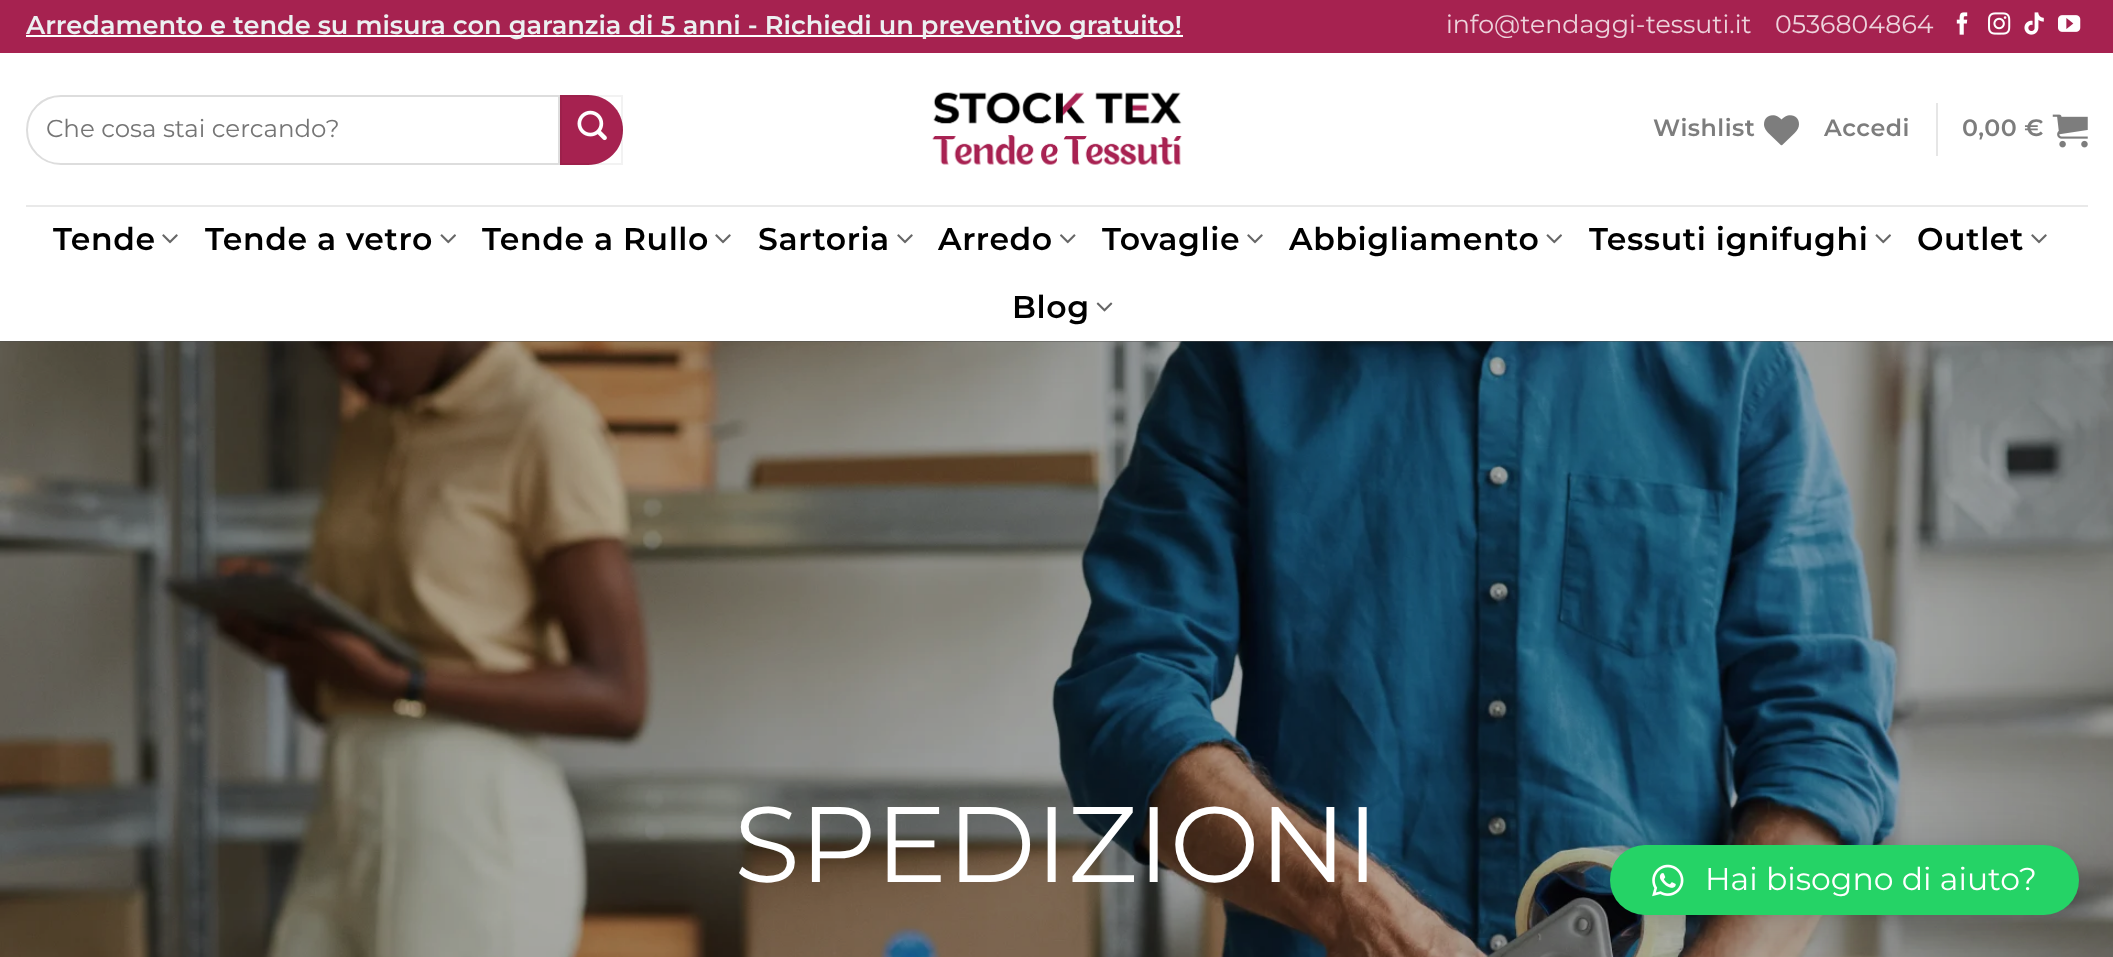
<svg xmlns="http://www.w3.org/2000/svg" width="2113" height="957">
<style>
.a{font:600 25.65px Montserrat;fill:#ecf0f1}
.b{font:25.25px Montserrat;fill:#edd3dc}
.c{font:24.5px Montserrat;fill:#757575}
.d{font:600 23.75px Montserrat;letter-spacing:0.5px;fill:#7d7d7d}
.e{font:600 31.5px Montserrat;letter-spacing:0.6px;fill:#000}
.f{font:107px Montserrat;fill:#fff}
.g{font:31.5px Montserrat;fill:#fff}
</style>
<rect width="100%" height="100%" fill="#fff"/>
<path fill="#a62250" d="M0 0h2113v53H0z"/>
<path fill="#fff" d="M26 35h1157v2H26z"/>
<image href="1.png" x="1956" y="12" width="12" height="23"/>
<image href="2.png" x="1988" y="12" width="23" height="23"/>
<image href="3.png" x="2024" y="12" width="20" height="23"/>
<image href="4.png" x="2058" y="15" width="23" height="17"/>
<path fill="none" stroke="#ddd" stroke-width="2" d="M61 96h498v68h-498c-19 0-34-15-34-34c0-19 15-34 34-34z"/>
<path fill="#a62250" d="M560 95h28c19.5 0 35 15.5 35 35c0 19.5-15.5 35-35 35h-28z"/>
<path fill="none" stroke="#0000000d" stroke-width="2" d="M561 96h61v68H561z"/>
<image href="5.png" x="577" y="110" width="30" height="31"/>
<image href="6.png" x="932" y="92" width="250" height="73"/>
<image href="7.png" x="1764" y="115" width="35" height="31"/>
<path fill="#e6e6e6" d="M1936 103h2v53H1936z"/>
<image href="8.png" x="2052" y="114" width="36" height="34"/>
<path fill="#e9e9e9" d="M26 205h2062v2H26z"/>
<image href="9.png" x="162" y="234" width="16" height="10"/>
<image href="10.png" x="440" y="234" width="16" height="10"/>
<image href="9.png" x="715" y="234" width="16" height="10"/>
<image href="9.png" x="897" y="234" width="16" height="10"/>
<image href="11.png" x="1060" y="234" width="16" height="10"/>
<image href="9.png" x="1247" y="234" width="16" height="10"/>
<image href="10.png" x="1546" y="234" width="16" height="10"/>
<image href="10.png" x="1875" y="234" width="16" height="10"/>
<image href="9.png" x="2031" y="234" width="16" height="10"/>
<image href="12.png" x="1096" y="302" width="17" height="10"/>
<path fill="#4d4d4d" d="M0 341h2113v1H0z"/>
<image href="13.png" x="0" y="341" width="2113" height="616"/>
<rect fill="#00000029" filter="blur(28px)" x="1610" y="849" width="469" height="70" rx="35"/>
<rect fill="#0000000f" filter="blur(5px)" x="1610" y="847" width="469" height="70" rx="35"/>
<rect fill="#25d366" x="1610" y="845" width="469" height="70" rx="35"/>
<image href="14.png" x="1652" y="864" width="32" height="33"/>
<text class="a" x="26" y="34">Arredamento e tende su misura con garanzia di 5 anni - Richiedi un preventivo gratuito!</text>
<text class="b" x="1446" y="33">info@tendaggi-tessuti.it</text>
<text class="b" x="1775" y="33">0536804864</text>
<text class="c" x="46" y="137">Che cosa stai cercando?</text>
<text class="d" x="1653" y="136">Wishlist</text>
<text class="d" x="1824" y="136">Accedi</text>
<text class="d" x="1962" y="136">0,00 €</text>
<text class="e" x="53" y="250">Tende</text>
<text class="e" x="205" y="250">Tende a vetro</text>
<text class="e" x="482" y="250">Tende a Rullo</text>
<text class="e" x="758" y="250">Sartoria</text>
<text class="e" x="938" y="250">Arredo</text>
<text class="e" x="1102" y="250">Tovaglie</text>
<text class="e" x="1289" y="250">Abbigliamento</text>
<text class="e" x="1589" y="250">Tessuti ignifughi</text>
<text class="e" x="1917" y="250">Outlet</text>
<text class="e" x="1012" y="318">Blog</text>
<text class="f" x="734" y="882">SPEDIZIONI</text>
<text class="g" x="1705" y="890">Hai bisogno di aiuto?</text>
</svg>
